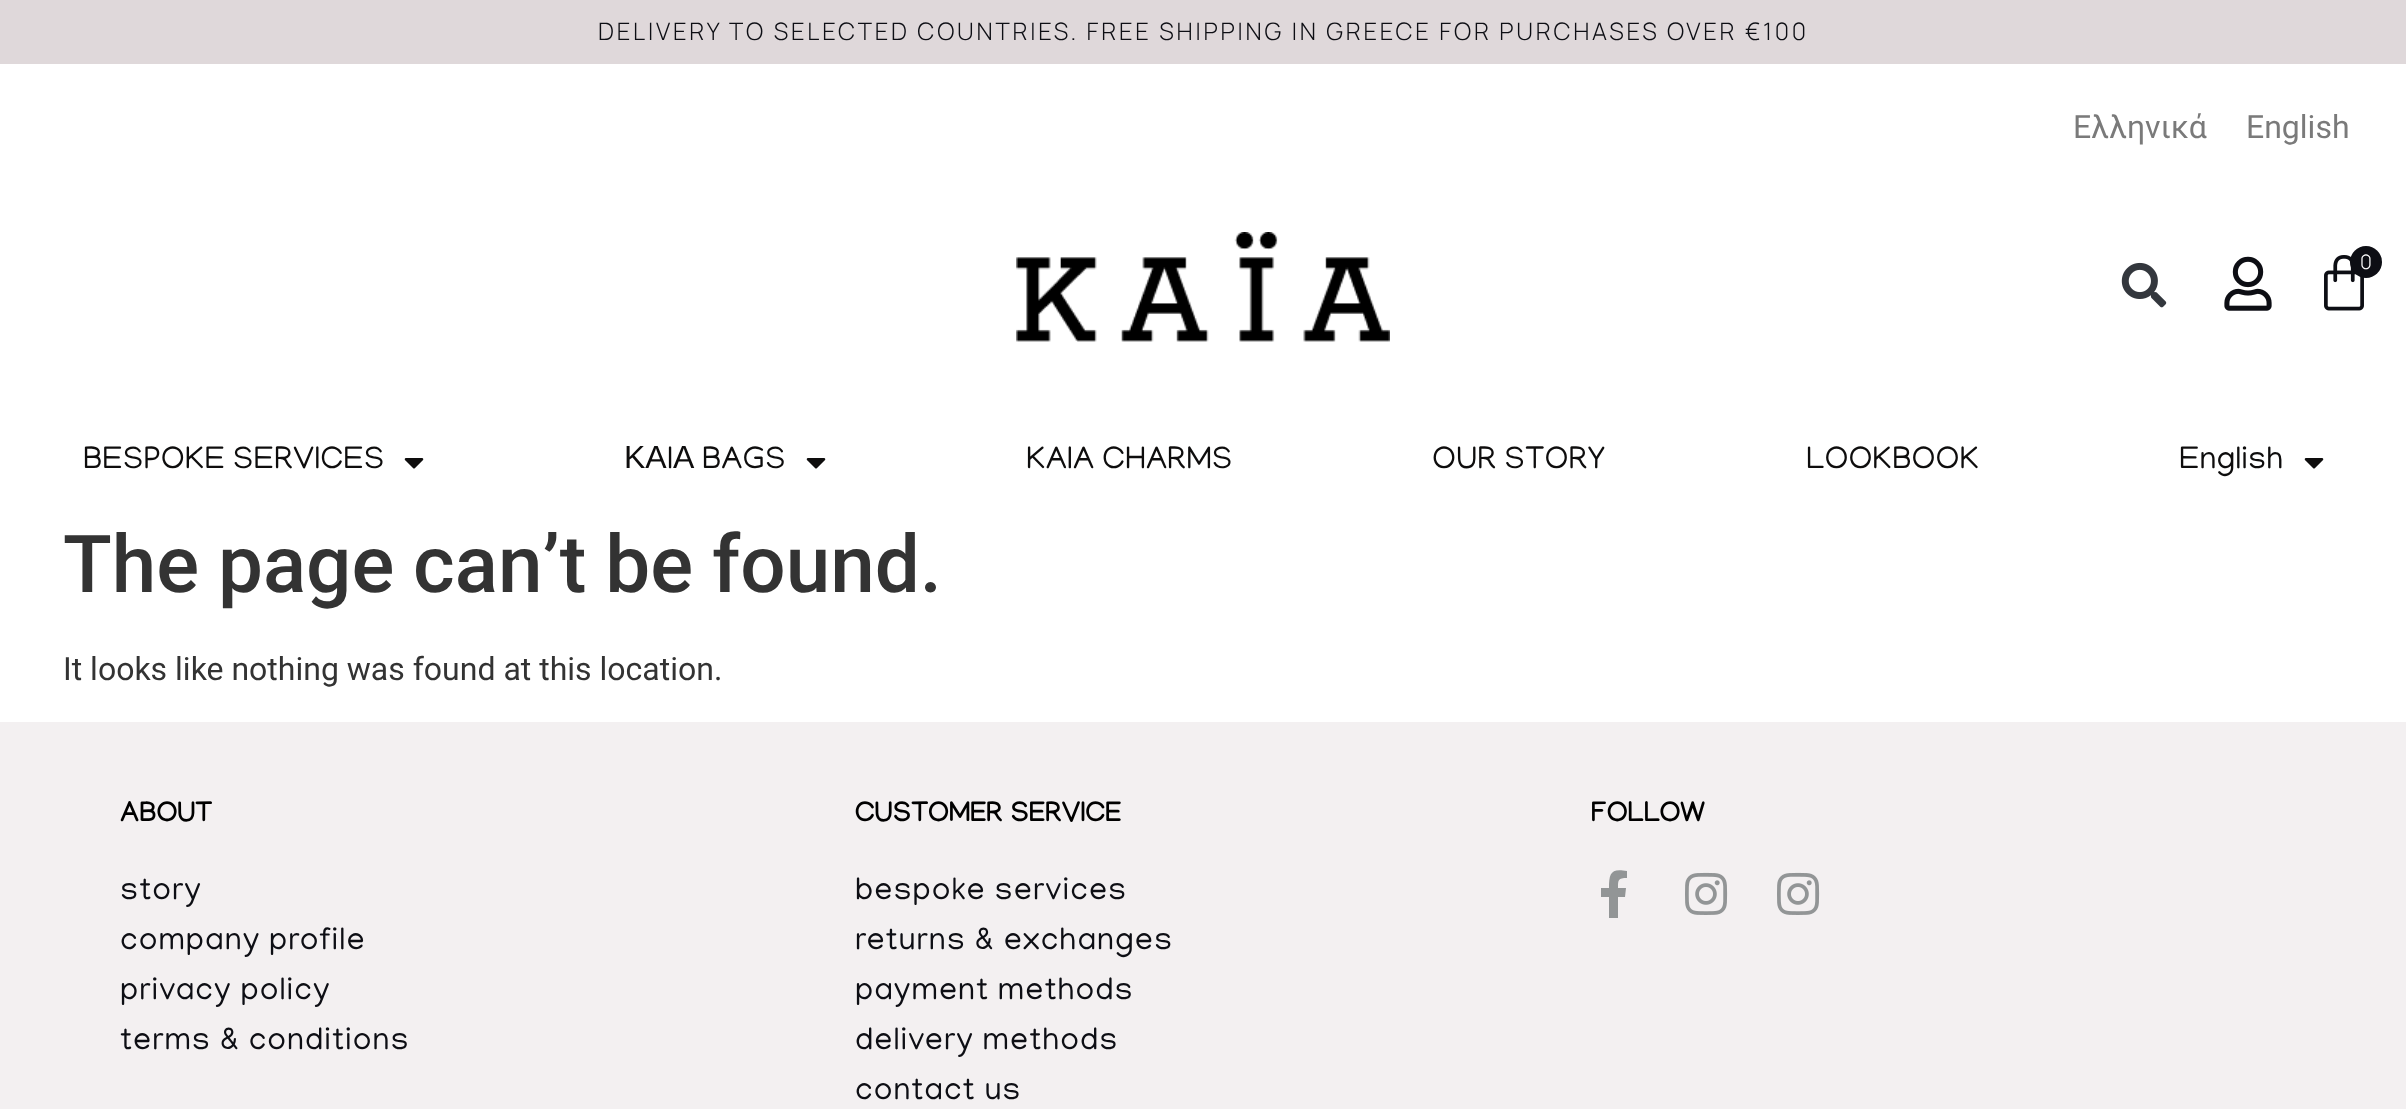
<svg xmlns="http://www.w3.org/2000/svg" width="2406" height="1109">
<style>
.a{font:300 24px Manrope;letter-spacing:2.8px;fill:#0d0e14}
.b{font:32px Roboto;fill:#7a7a7a}
.c{font:300 20px Manrope;fill:#fff}
.d{font:32px Manjari;fill:#0e0d0d}
.e{font:32px Liberation Sans;fill:#0e0d0d}
.f{font:500 80px Roboto;fill:#333}
.g{font:32px Roboto;fill:#333}
.h{font:bold 28px Manjari;fill:#000}
.i{font:32px Manjari;letter-spacing:1px;fill:#0d0e14}
</style>
<rect width="100%" height="100%" fill="#fff"/>
<path fill="#dfd8da" d="M0 0h2406v64H0z"/>
<image href="1.png" x="1016" y="232" width="374" height="110"/>
<image href="2.png" x="2121" y="262" width="46" height="46"/>
<image href="3.png" x="2224" y="256" width="48" height="55"/>
<image href="4.png" x="2324" y="255" width="40" height="56"/>
<circle fill="#0d0e14" cx="2366" cy="262" r="16"/>
<image href="5.png" x="404" y="458" width="20" height="11"/>
<image href="5.png" x="806" y="458" width="20" height="11"/>
<image href="5.png" x="2304" y="458" width="20" height="11"/>
<path fill="#f3f0f1" d="M0 722h2406v387H0z"/>
<path fill="#929596" d="M1625 897h-7v21h-9v-21h-8v-9h8c0-15 2-20 18-17v7c-9 0-9 2-9 10h8z"/>
<image href="6.png" x="1685" y="872" width="43" height="43"/>
<image href="6.png" x="1777" y="872" width="43" height="43"/>
<text class="a" x="598" y="40">DELIVERY TO SELECTED COUNTRIES. FREE SHIPPING IN GREECE FOR PURCHASES OVER €100</text>
<text class="b" x="2073" y="138">Ελληνικά</text>
<text class="b" x="2246" y="138">English</text>
<text class="c" x="2360" y="269">0</text>
<text class="d" x="83" y="468">BESPOKE SERVICES</text>
<text class="e" x="624" y="468">ΚΑ</text>
<text class="d" x="667" y="468">I</text>
<text class="e" x="673" y="468">Α</text>
<text class="d" x="702" y="468">BAGS</text>
<text class="d" x="1026" y="468">KAIA CHARMS</text>
<text class="d" x="1432" y="468">OUR STORY</text>
<text class="d" x="1806" y="468">LOOKBOOK</text>
<text class="d" x="2179" y="468">English</text>
<text class="f" x="63" y="592" word-spacing="-1">The page can’t be found.</text>
<text class="g" x="63" y="680">It looks like nothing was found at this location.</text>
<text class="h" x="120" y="821">ABOUT</text>
<text class="i" x="120" y="899">story</text>
<text class="i" x="120" y="949">company profile</text>
<text class="i" x="120" y="999">privacy policy</text>
<text class="i" x="120" y="1049">terms &amp; conditions</text>
<text class="h" x="855" y="821">CUSTOMER SERVICE</text>
<text class="i" x="855" y="899">bespoke services</text>
<text class="i" x="855" y="949">returns &amp; exchanges</text>
<text class="i" x="855" y="999">payment methods</text>
<text class="i" x="855" y="1049">delivery methods</text>
<text class="i" x="855" y="1099">contact us</text>
<text class="h" x="1591" y="821">FOLLOW</text>
</svg>
